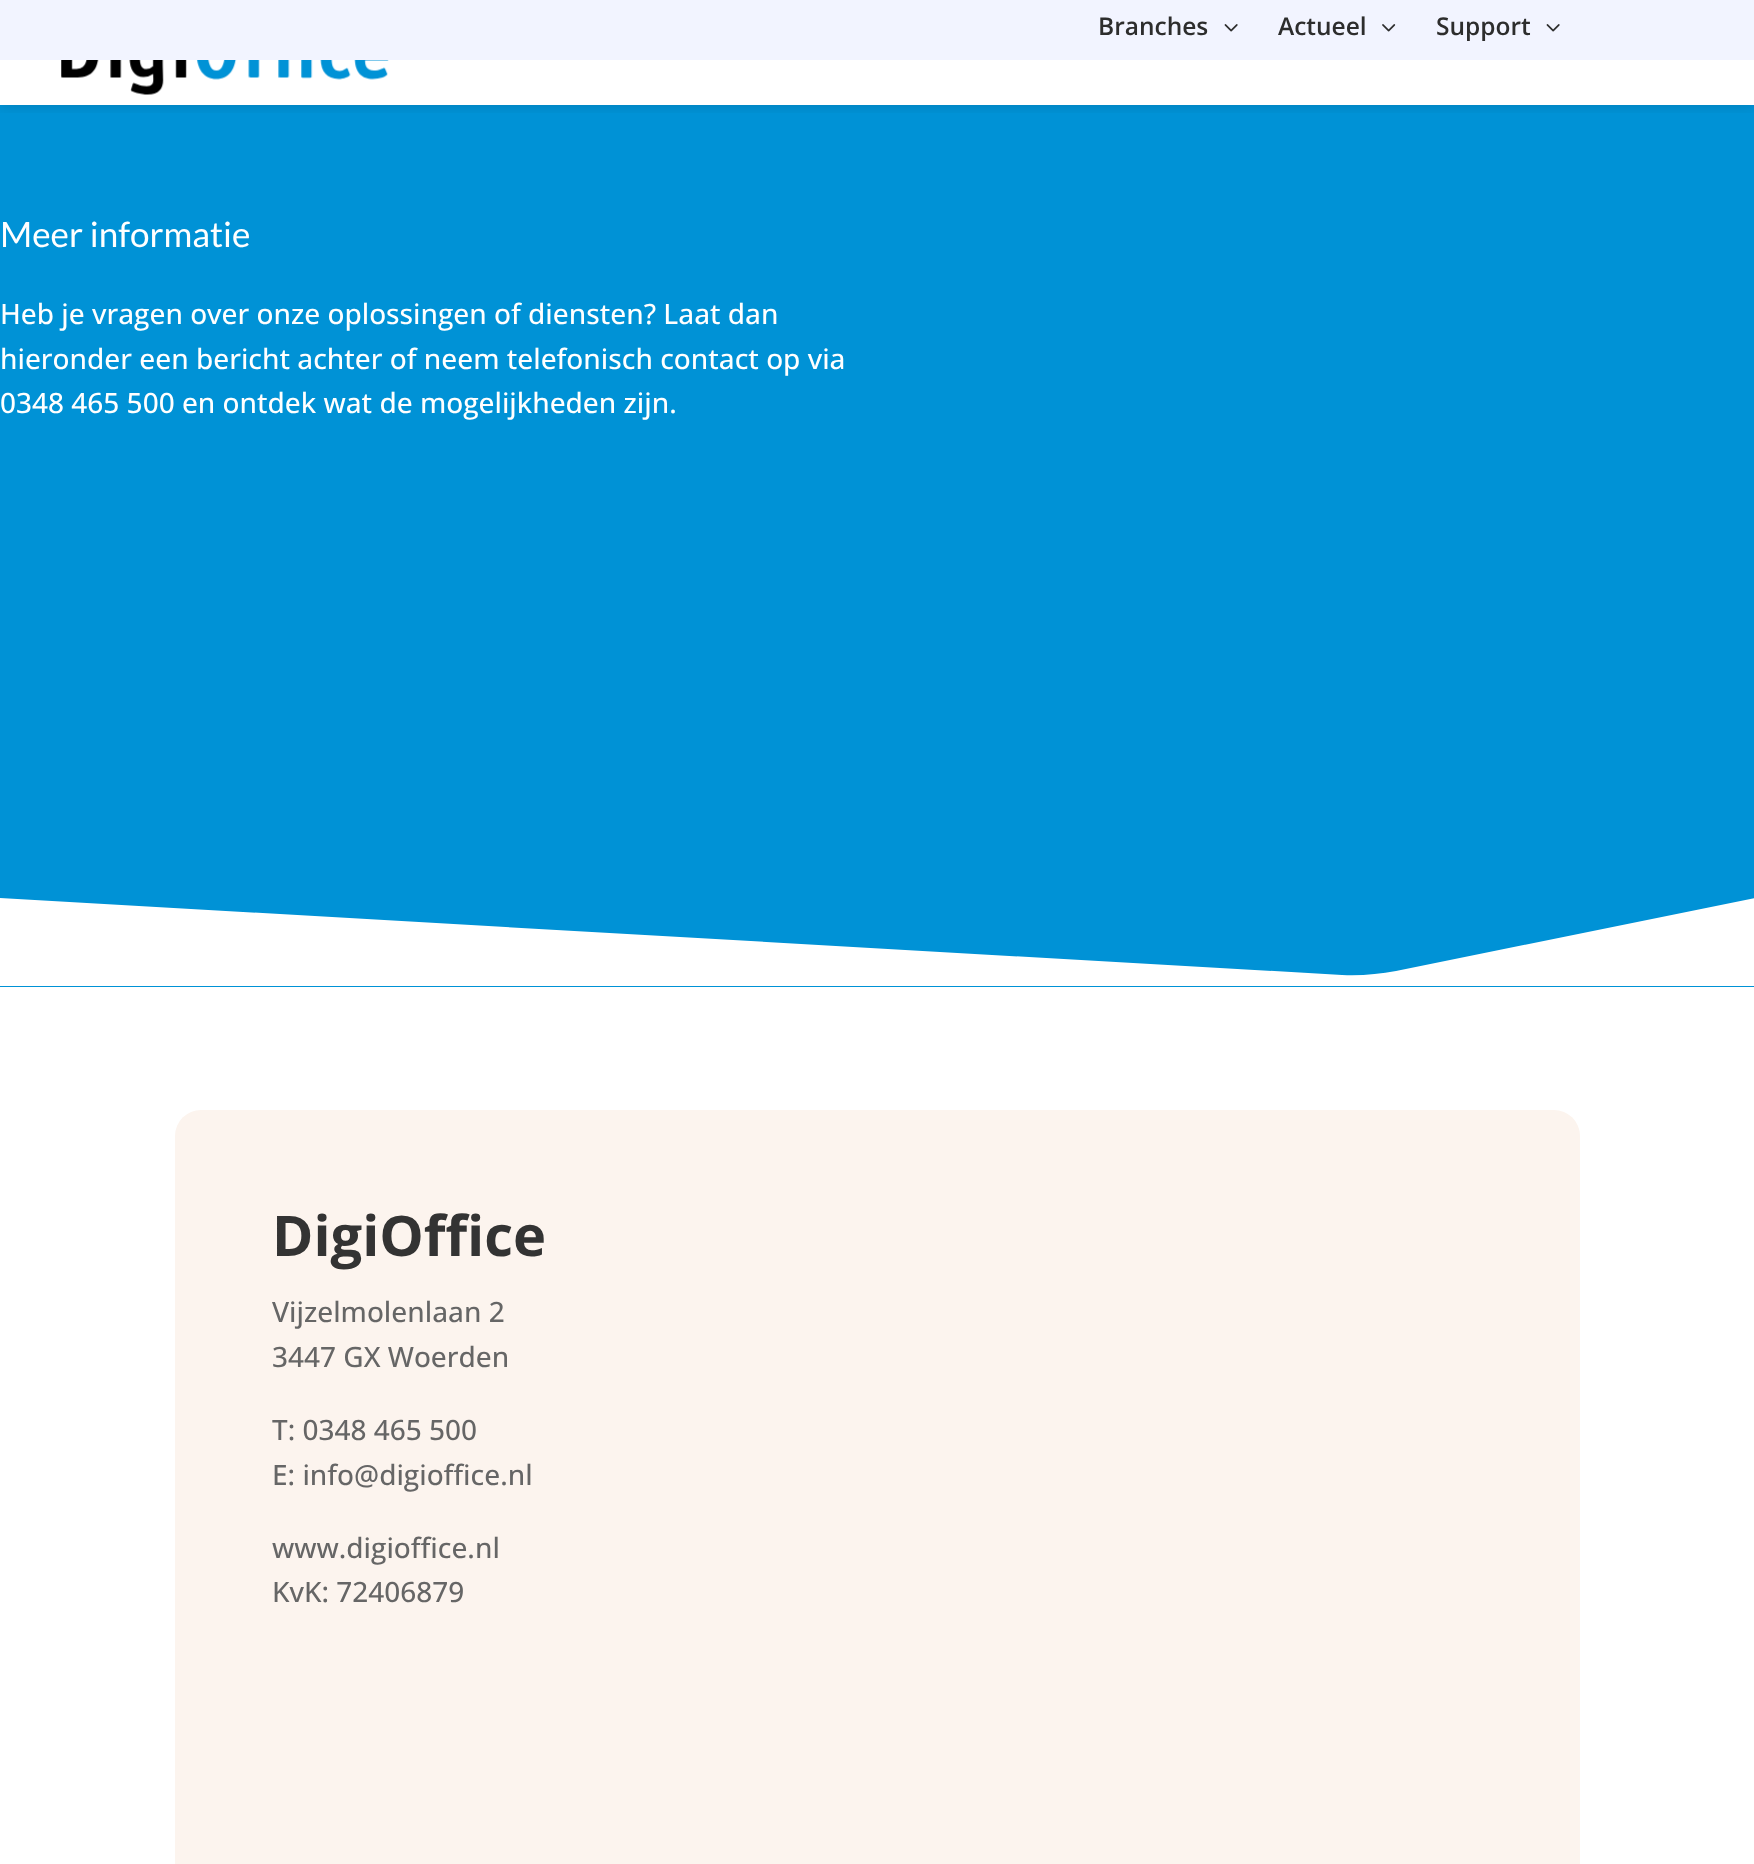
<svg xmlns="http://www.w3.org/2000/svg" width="1754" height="1864">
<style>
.a{font:600 24.5px Open Sans;fill:#2d2d2d}
.b{font:35px Lato;fill:#fff}
.c{font:500 28px Open Sans;fill:#fff}
.d{font:bold 56px Open Sans;fill:#333}
.e{font:500 28px Open Sans;fill:#666}
</style>
<defs>
<clipPath id="clip1"><path d="M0 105h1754v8H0z"/></clipPath>
</defs>
<rect width="100%" height="100%" fill="#fff"/>
<path fill="#0092d6" d="M0 105h1754v882H0z"/>
<g clip-path="url(#clip1)">
<path fill="#00000026" filter="blur(7px)" d="M0 0h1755v105H0z"/>
</g>
<image href="1.png" x="61" y="60" width="328" height="35"/>
<path fill="#f2f4ff" d="M0 0h1754v60H0z"/>
<image href="2.png" x="1224" y="24" width="14" height="8"/>
<image href="3.png" x="1382" y="24" width="14" height="8"/>
<image href="2.png" x="1546" y="24" width="14" height="8"/>
<path fill="#fff" d="M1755 898l-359 73c-17 3-35 5-54 4l-1342-77v88h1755z"/>
<rect fill="#fcf4ee" x="175" y="1110" width="1405" height="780" rx="26"/>
<text class="a" x="1098" y="35">Branches</text>
<text class="a" x="1278" y="35">Actueel</text>
<text class="a" x="1436" y="35">Support</text>
<text class="b" x="0" y="247">Meer informatie</text>
<text class="c" x="0" y="324">Heb je vragen over onze oplossingen of diensten? Laat dan</text>
<text class="c" x="0" y="369">hieronder een bericht achter of neem telefonisch contact op via</text>
<text class="c" x="0" y="413">0348 465 500 en ontdek wat de mogelijkheden zijn.</text>
<text class="d" x="272" y="1256">DigiOffice</text>
<text class="e" x="272" y="1322">Vijzelmolenlaan 2</text>
<text class="e" x="272" y="1367">3447 GX Woerden</text>
<text class="e" x="272" y="1440">T: 0348 465 500</text>
<text class="e" x="272" y="1485">E: info@digioffice.nl</text>
<text class="e" x="272" y="1558">www.digioffice.nl</text>
<text class="e" x="272" y="1602">KvK: 72406879</text>
</svg>
